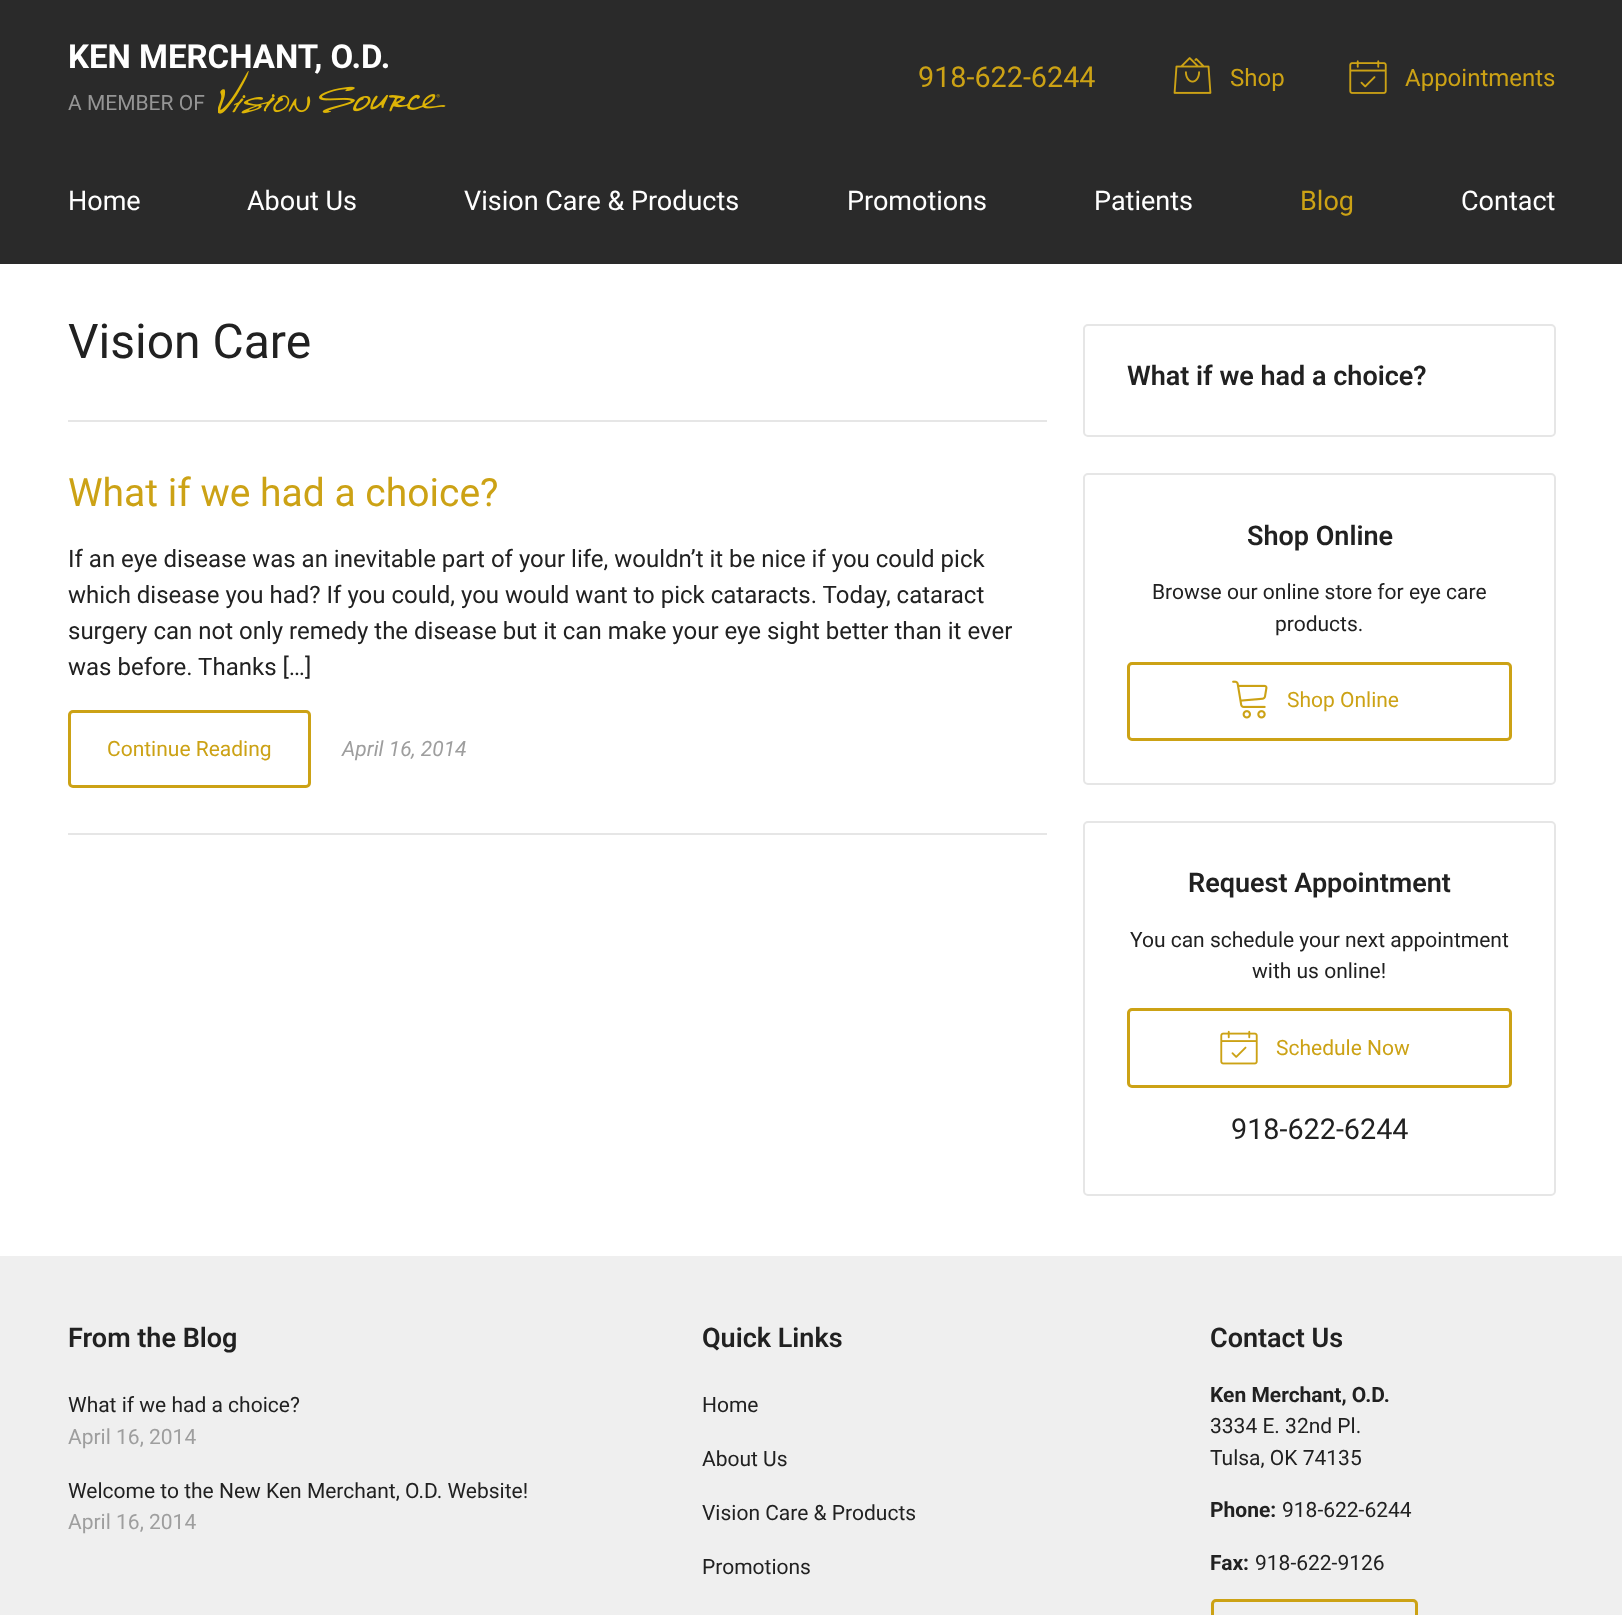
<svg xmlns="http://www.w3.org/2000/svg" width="1622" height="1615">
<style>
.a{font:bold 33px Roboto;fill:#fff}
.b{font:21px Roboto;fill:#959595}
.c{font:28.75px Roboto;fill:#cca215}
.d{font:24px Roboto;fill:#cca215}
.e{font:27px Roboto;fill:#fff}
.f{font:27px Roboto;fill:#cca215}
.g{font:48px Roboto;fill:#212121}
.h{font:39px Roboto;fill:#cca215}
.i{font:24px Roboto;fill:#212121}
.j{font:21px Roboto;fill:#cca215}
.k{font:italic 21px Roboto;fill:#9e9e9e}
.l{font:600 27px Roboto;fill:#212121}
.m{font:21px Roboto;fill:#212121}
.n{font:28.75px Roboto;fill:#212121}
.o{font:21px Roboto;fill:#9e9e9e}
.p{font:bold 21px Roboto;fill:#212121}
</style>
<rect width="100%" height="100%" fill="#efefef"/>
<path fill="#2a2a2a" d="M0 0h1622v264H0z"/>
<image href="2.png" x="1173" y="57" width="39" height="37"/>
<image href="3.png" x="1349" y="60" width="38" height="34"/>
<path fill="#fff" d="M0 264h1622v992H0z"/>
<path fill="#e6e6e6" d="M68 420h979v2H68z"/>
<path fill="#e6e6e6" d="M68 833h979v2H68z"/>
<rect fill="none" stroke="#cca215" stroke-width="3" x="69.5" y="711.5" width="240" height="75" rx="3.5"/>
<rect fill="none" stroke="#e6e6e6" stroke-width="2" x="1084" y="325" width="471" height="111" rx="4"/>
<rect fill="none" stroke="#e6e6e6" stroke-width="2" x="1084" y="474" width="471" height="310" rx="4"/>
<rect fill="none" stroke="#cca215" stroke-width="3" x="1128.5" y="663.5" width="382" height="76" rx="3.5"/>
<image href="4.png" x="1232" y="680" width="36" height="39"/>
<rect fill="none" stroke="#e6e6e6" stroke-width="2" x="1084" y="822" width="471" height="373" rx="4"/>
<rect fill="none" stroke="#cca215" stroke-width="3" x="1128.5" y="1009.5" width="382" height="77" rx="3.5"/>
<image href="5.png" x="1220" y="1030" width="38" height="35"/>
<rect fill="none" stroke="#cca215" stroke-width="3" x="1212.5" y="1600.5" width="204" height="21" rx="3.5"/>
<text class="a" x="68" y="68">KEN MERCHANT, O.D.</text>
<text class="b" x="68" y="110">A MEMBER OF</text>
<image href="1.png" x="218" y="71" width="228" height="43"/>
<text class="c" x="918" y="87">918-622-6244</text>
<text class="d" x="1230" y="86">Shop</text>
<text class="d" x="1405" y="86">Appointments</text>
<text class="e" x="68" y="210">Home</text>
<text class="e" x="247" y="210">About Us</text>
<text class="e" x="464" y="210">Vision Care &amp; Products</text>
<text class="e" x="847" y="210">Promotions</text>
<text class="e" x="1094" y="210">Patients</text>
<text class="f" x="1300" y="210">Blog</text>
<text class="e" x="1461" y="210">Contact</text>
<text class="g" x="68" y="358">Vision Care</text>
<text class="h" x="68" y="506">What if we had a choice?</text>
<text class="i" x="68" y="567">If an eye disease was an inevitable part of your life, wouldn’t it be nice if you could pick</text>
<text class="i" x="68" y="603">which disease you had? If you could, you would want to pick cataracts. Today, cataract</text>
<text class="i" x="68" y="639">surgery can not only remedy the disease but it can make your eye sight better than it ever</text>
<text class="i" x="68" y="675">was before. Thanks […]</text>
<text class="j" x="107" y="756">Continue Reading</text>
<text class="k" x="342" y="756">April 16, 2014</text>
<text class="l" x="1127" y="385">What if we had a choice?</text>
<text class="l" x="1247" y="545">Shop Online</text>
<text class="m" x="1152" y="599">Browse our online store for eye care</text>
<text class="m" x="1275" y="631">products.</text>
<text class="j" x="1287" y="707">Shop Online</text>
<text class="l" x="1188" y="892">Request Appointment</text>
<text class="m" x="1130" y="947">You can schedule your next appointment</text>
<text class="m" x="1252" y="978">with us online!</text>
<text class="j" x="1276" y="1055">Schedule Now</text>
<text class="n" x="1231" y="1139">918-622-6244</text>
<text class="l" x="68" y="1347">From the Blog</text>
<text class="m" x="68" y="1412">What if we had a choice?</text>
<text class="o" x="68" y="1444">April 16, 2014</text>
<text class="m" x="68" y="1498">Welcome to the New Ken Merchant, O.D. Website!</text>
<text class="o" x="68" y="1529">April 16, 2014</text>
<text class="l" x="702" y="1347">Quick Links</text>
<text class="m" x="702" y="1412">Home</text>
<text class="m" x="702" y="1466">About Us</text>
<text class="m" x="702" y="1520">Vision Care &amp; Products</text>
<text class="m" x="702" y="1574">Promotions</text>
<text class="l" x="1210" y="1347">Contact Us</text>
<text class="p" x="1210" y="1402">Ken Merchant, O.D.</text>
<text class="m" x="1210" y="1433">3334 E. 32nd Pl.</text>
<text class="m" x="1210" y="1465">Tulsa, OK 74135</text>
<text class="p" x="1210" y="1517">Phone:</text>
<text class="m" x="1282" y="1517">918-622-6244</text>
<text class="p" x="1210" y="1570">Fax:</text>
<text class="m" x="1255" y="1570">918-622-9126</text>
</svg>
